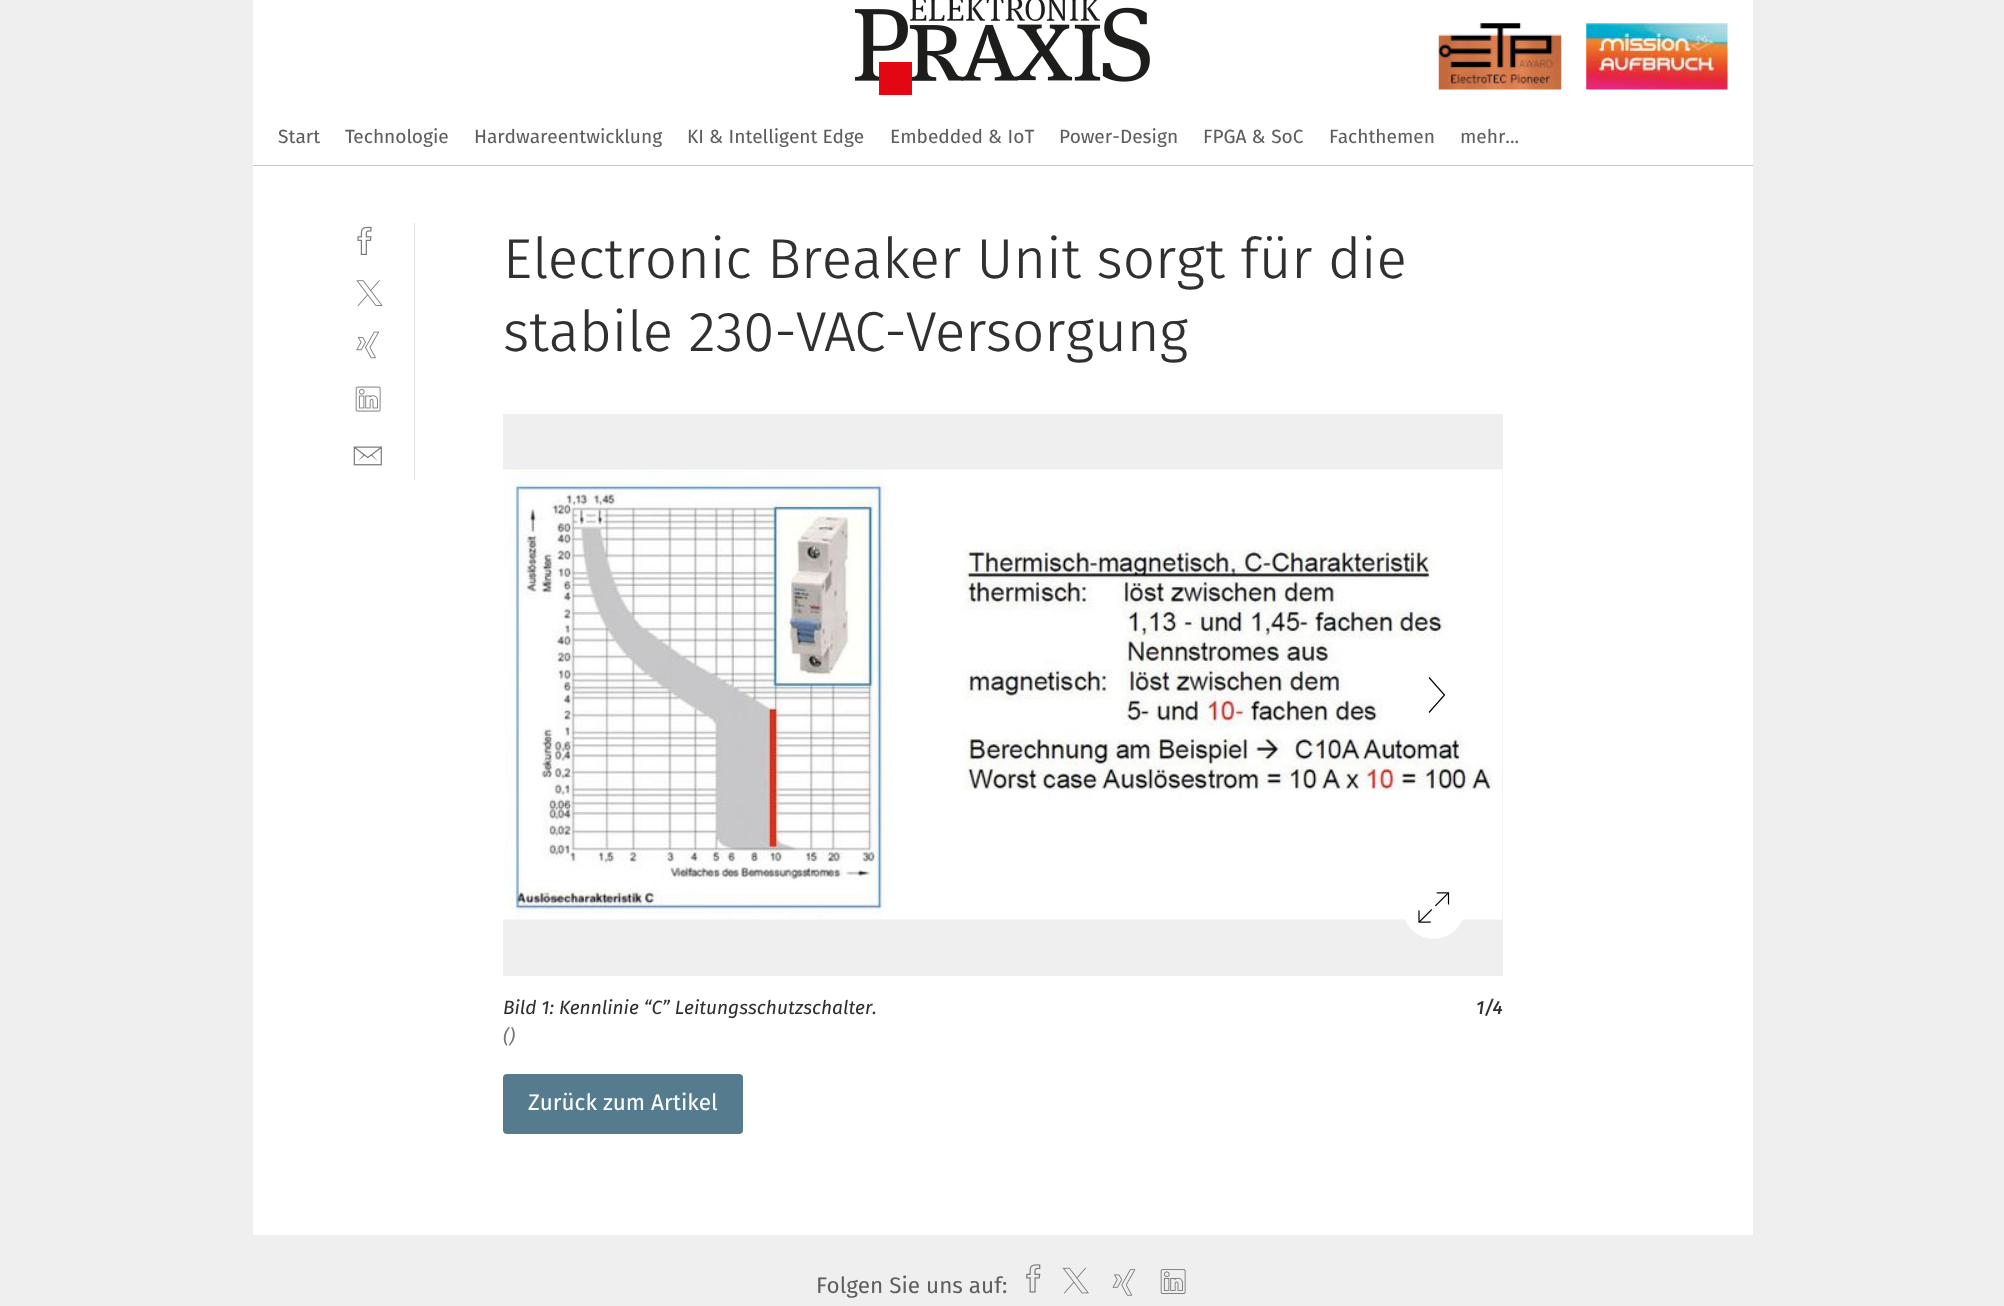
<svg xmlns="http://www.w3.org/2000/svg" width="2004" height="1306">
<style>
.a{font:19.1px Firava;fill:#5e5e5e}
.b{font:300 56.25px Firava;fill:#303030}
.c{font:italic 19.1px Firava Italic;fill:#303030}
.d{font:italic 19.1px Firava Italic;fill:#767676}
.e{font:italic 500 19.1px Firava Italic;fill:#303030}
.f{font:22.5px Firava;fill:#fff}
.g{font:22.5px 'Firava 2';fill:#5e5e5e}
</style>
<rect width="100%" height="100%" fill="#efefef"/>
<path fill="#fff" d="M253 0h1500v1235H253z"/>
<path fill="#c6c6c6" d="M253 165h1500v1H253z"/>
<image href="1.png" x="855" y="0" width="295" height="95"/>
<image href="2.png" x="1438" y="23" width="124" height="67"/>
<image href="3.png" x="1586" y="23" width="142" height="67"/>
<path fill="#e2e2e2" d="M414 223h1v257H414z"/>
<image href="4.png" x="357" y="226" width="15" height="29"/>
<image href="5.png" x="356" y="280" width="27" height="26"/>
<image href="6.png" x="356" y="331" width="23" height="28"/>
<image href="7.png" x="355" y="386" width="26" height="26"/>
<image href="8.png" x="353" y="446" width="29" height="20"/>
<path fill="#efefef" d="M503 414h1000v562H503z"/>
<image href="9.png" x="503" y="469" width="1000" height="451"/>
<path fill="none" stroke="#000" stroke-width="1.2" d="M1429 712.5l15.5-17.5l-15.5-17.5"/>
<image href="10.png" x="1405" y="892" width="58" height="47"/>
<rect fill="#547c8e" x="503" y="1074" width="240" height="60" rx="4"/>
<image href="11.png" x="1026" y="1264" width="15" height="29"/>
<image href="12.png" x="1062" y="1267" width="27" height="27"/>
<image href="13.png" x="1112" y="1269" width="24" height="27"/>
<image href="14.png" x="1160" y="1269" width="26" height="25"/>
<text class="a" x="278" y="143">Start</text>
<text class="a" x="345" y="143">Technologie</text>
<text class="a" x="474" y="143">Hardwareentwicklung</text>
<text class="a" x="687" y="143">KI &amp; Intelligent Edge</text>
<text class="a" x="890" y="143">Embedded &amp; IoT</text>
<text class="a" x="1059" y="143">Power-Design</text>
<text class="a" x="1203" y="143">FPGA &amp; SoC</text>
<text class="a" x="1329" y="143">Fachthemen</text>
<text class="a" x="1460" y="143">mehr...</text>
<text class="b" x="503" y="278">Electronic Breaker Unit sorgt für die</text>
<text class="b" x="503" y="351">stabile 230-VAC-Versorgung</text>
<text class="c" x="503" y="1014">Bild 1: Kennlinie “C” Leitungsschutzschalter.</text>
<text class="d" x="503" y="1043">()</text>
<text class="e" x="1476" y="1014">1/4</text>
<text class="f" x="528" y="1110">Zurück zum Artikel</text>
<text class="g" x="816" y="1293">Folgen Sie uns auf:</text>
</svg>
